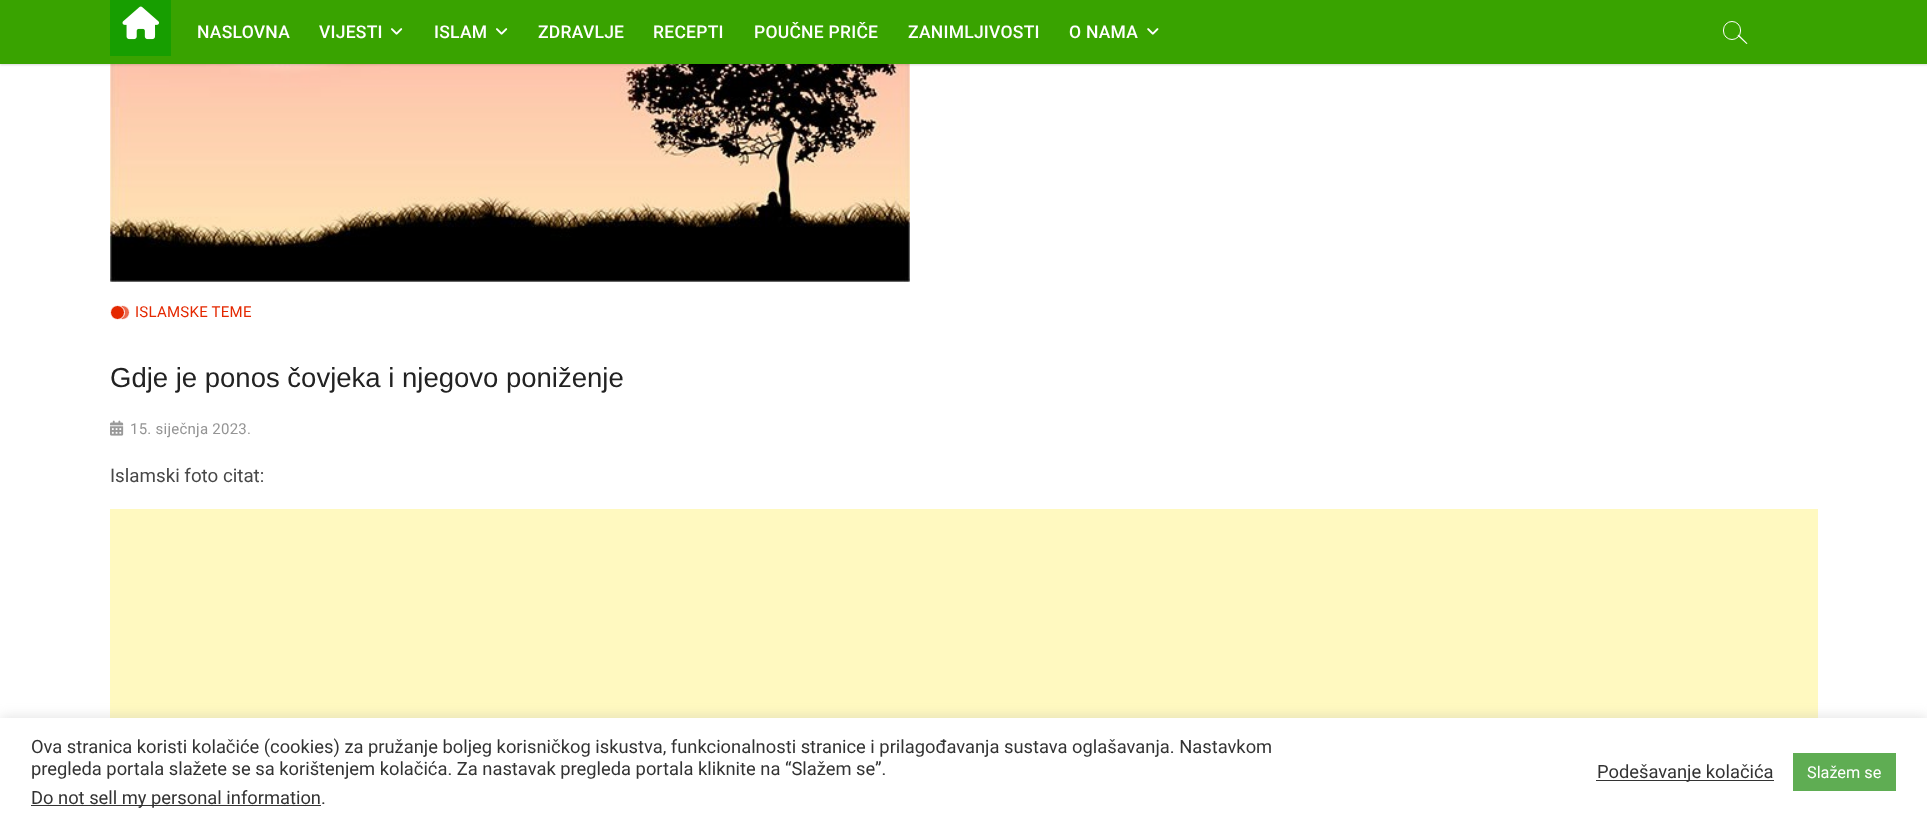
<svg xmlns="http://www.w3.org/2000/svg" width="1927" height="826">
<style>
.a{font:500 17.5px Roboto;letter-spacing:0.25px;fill:#fff}
.b{font:15px Roboto;letter-spacing:0.25px;fill:#e42800}
.c{font:27.5px Liberation Sans;fill:#222}
.d{font:15px Roboto;letter-spacing:0.25px;fill:#949494}
.e{font:18.75px Roboto;fill:#484848}
.f{font:18.33px Roboto;fill:#333}
.g{font:16.25px Roboto;fill:#fff}
</style>
<rect width="100%" height="100%" fill="#fff"/>
<image href="4.png" x="110" y="64" width="800" height="218"/>
<path fill="#00000026" filter="blur(1px)" d="M0 1h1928v64H0z"/>
<path fill="#39a300" d="M0 0h1927v64H0z"/>
<path fill="#179e00" d="M110 0h61v56H110z"/>
<image href="1.png" x="122" y="6" width="37" height="34"/>
<image href="2.png" x="391" y="28" width="12" height="7"/>
<image href="2.png" x="496" y="28" width="12" height="7"/>
<image href="3.png" x="1147" y="28" width="12" height="7"/>
<rect fill="none" stroke="#fff" x="1723.5" y="21.5" width="17" height="18" rx="8.5"/>
<path fill="#fff" d="M1737.5 35.5l1-1l9 9l-1 .5z"/>
<circle fill="#ec694d" stroke="#fff" cx="122.5" cy="312.5" r="7"/>
<circle fill="#e42800" stroke="#fff" cx="117.5" cy="312.5" r="7"/>
<image href="5.png" x="110" y="420" width="14" height="16"/>
<path fill="#fff9c0" d="M110 509h1708v209H110z"/>
<path fill="#acabab4d" filter="blur(6px)" d="M0 716h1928v109H0z"/>
<path fill="#fff" d="M0 718h1927v108H0z"/>
<path fill="#333" d="M31 805h290v1H31z"/>
<path fill="#333" d="M1596 780h178v1H1596z"/>
<path fill="#5fad53" d="M1793 753h103v38H1793z"/>
<text class="a" x="197" y="38">NASLOVNA</text>
<text class="a" x="319" y="38">VIJESTI</text>
<text class="a" x="434" y="38">ISLAM</text>
<text class="a" x="538" y="38">ZDRAVLJE</text>
<text class="a" x="653" y="38">RECEPTI</text>
<text class="a" x="754" y="38">POUČNE PRIČE</text>
<text class="a" x="908" y="38">ZANIMLJIVOSTI</text>
<text class="a" x="1069" y="38">O NAMA</text>
<text class="b" x="135" y="317">ISLAMSKE TEME</text>
<text class="c" x="110" y="387">Gdje je ponos čovjeka i njegovo poniženje</text>
<text class="d" x="130" y="434">15. siječnja 2023.</text>
<text class="e" x="110" y="482">Islamski foto citat:</text>
<text class="f" x="31" y="753">Ova stranica koristi kolačiće (cookies) za pružanje boljeg korisničkog iskustva, funkcionalnosti stranice i prilagođavanja sustava oglašavanja. Nastavkom</text>
<text class="f" x="31" y="775">pregleda portala slažete se sa korištenjem kolačića. Za nastavak pregleda portala kliknite na “Slažem se”.</text>
<text class="f" x="31" y="804">Do not sell my personal information.</text>
<text class="f" x="1597" y="778">Podešavanje kolačića</text>
<text class="g" x="1807" y="778">Slažem se</text>
</svg>
